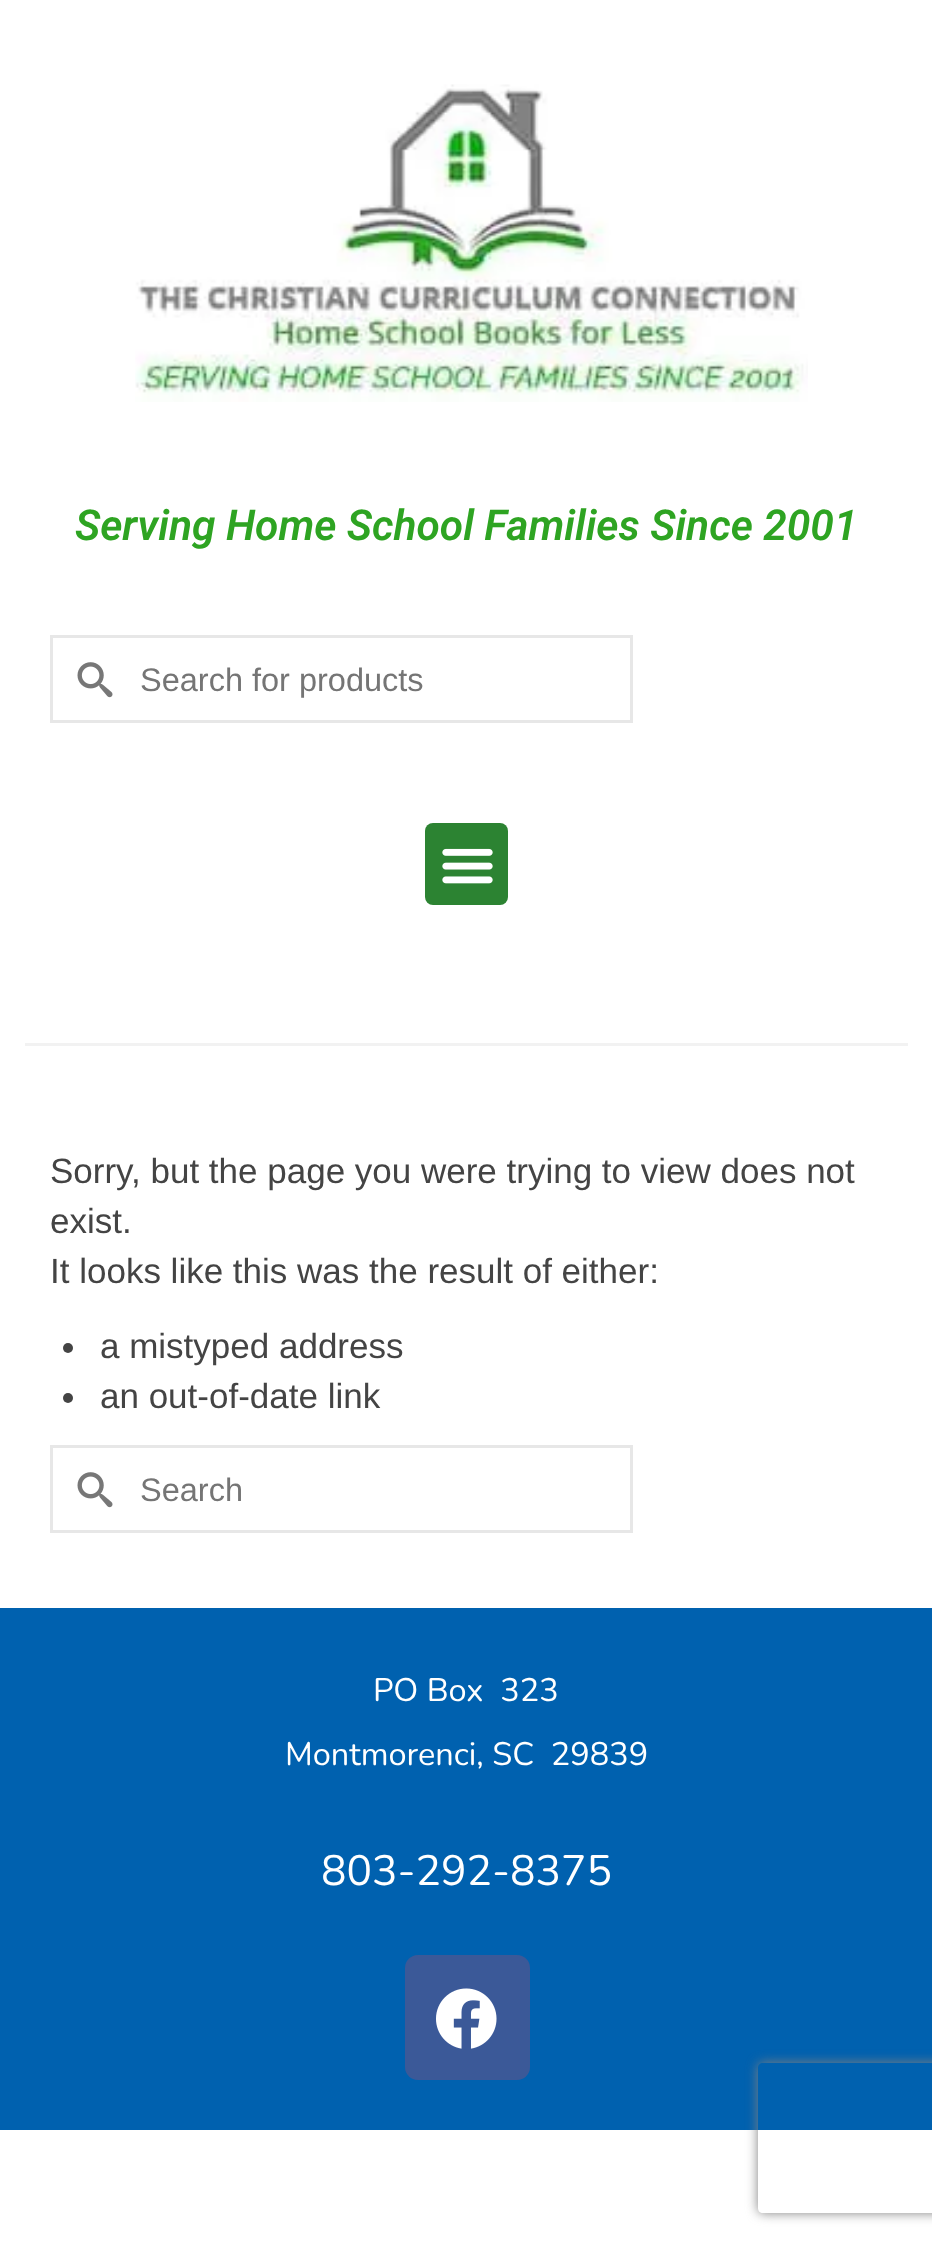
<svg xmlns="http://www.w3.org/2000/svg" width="932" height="2246">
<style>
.a{font:italic 600 42.5px Roboto;fill:#2ea422}
.b{font:32.5px Liberation Sans;fill:#757575}
.c{font:35px Liberation Sans;fill:#444}
.d{font:32.5px Nunito;fill:#fff}
.e{font:42.5px Nunito;fill:#fff}
</style>
<defs>
<clipPath id="clip1"><path d="M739 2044h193v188h-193zm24 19h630c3 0 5 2 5 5v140c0 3-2 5-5 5h-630c-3 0-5-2-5-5v-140c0-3 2-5 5-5z" clip-rule="evenodd"/></clipPath>
</defs>
<rect width="100%" height="100%" fill="#fff"/>
<image href="1.png" x="135" y="84" width="673" height="318"/>
<path fill="none" stroke="#e7e7e7" stroke-width="3" d="M51.5 636.5h580v85H51.5z"/>
<image href="2.png" x="77" y="662" width="36" height="36"/>
<rect fill="#2c8332" x="425" y="823" width="83" height="82" rx="8"/>
<image href="3.png" x="442" y="848" width="51" height="36"/>
<path fill="#f2f2f2" d="M25 1043h883v3H25z"/>
<circle fill="#444" cx="68" cy="1348" r="5"/>
<circle fill="#444" cx="68" cy="1398" r="5"/>
<path fill="none" stroke="#e7e7e7" stroke-width="3" d="M51.5 1446.5h580v85H51.5z"/>
<image href="2.png" x="77" y="1472" width="36" height="36"/>
<path fill="#0061af" d="M0 1608h932v522H0z"/>
<rect fill="#3b5998" x="405" y="1955" width="125" height="125" rx="13"/>
<image href="4.png" x="436" y="1988" width="61" height="61"/>
<g clip-path="url(#clip1)">
<rect fill="#808080" filter="blur(6px)" x="758" y="2063" width="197" height="150" rx="5"/>
</g>
<text class="a" x="75" y="540">Serving Home School Families Since 2001</text>
<text class="b" x="140" y="691">Search for products</text>
<text class="c" x="50" y="1183">Sorry, but the page you were trying to view does not</text>
<text class="c" x="50" y="1233">exist.</text>
<text class="c" x="50" y="1283">It looks like this was the result of either:</text>
<text class="c" x="100" y="1358">a mistyped address</text>
<text class="c" x="100" y="1408">an out-of-date link</text>
<text class="b" x="140" y="1501">Search</text>
<text class="d" xml:space="preserve" x="373" y="1701">PO Box  323</text>
<text class="d" xml:space="preserve" x="285" y="1765">Montmorenci, SC  29839</text>
<text class="e" x="321" y="1885">803-292-8375</text>
</svg>
